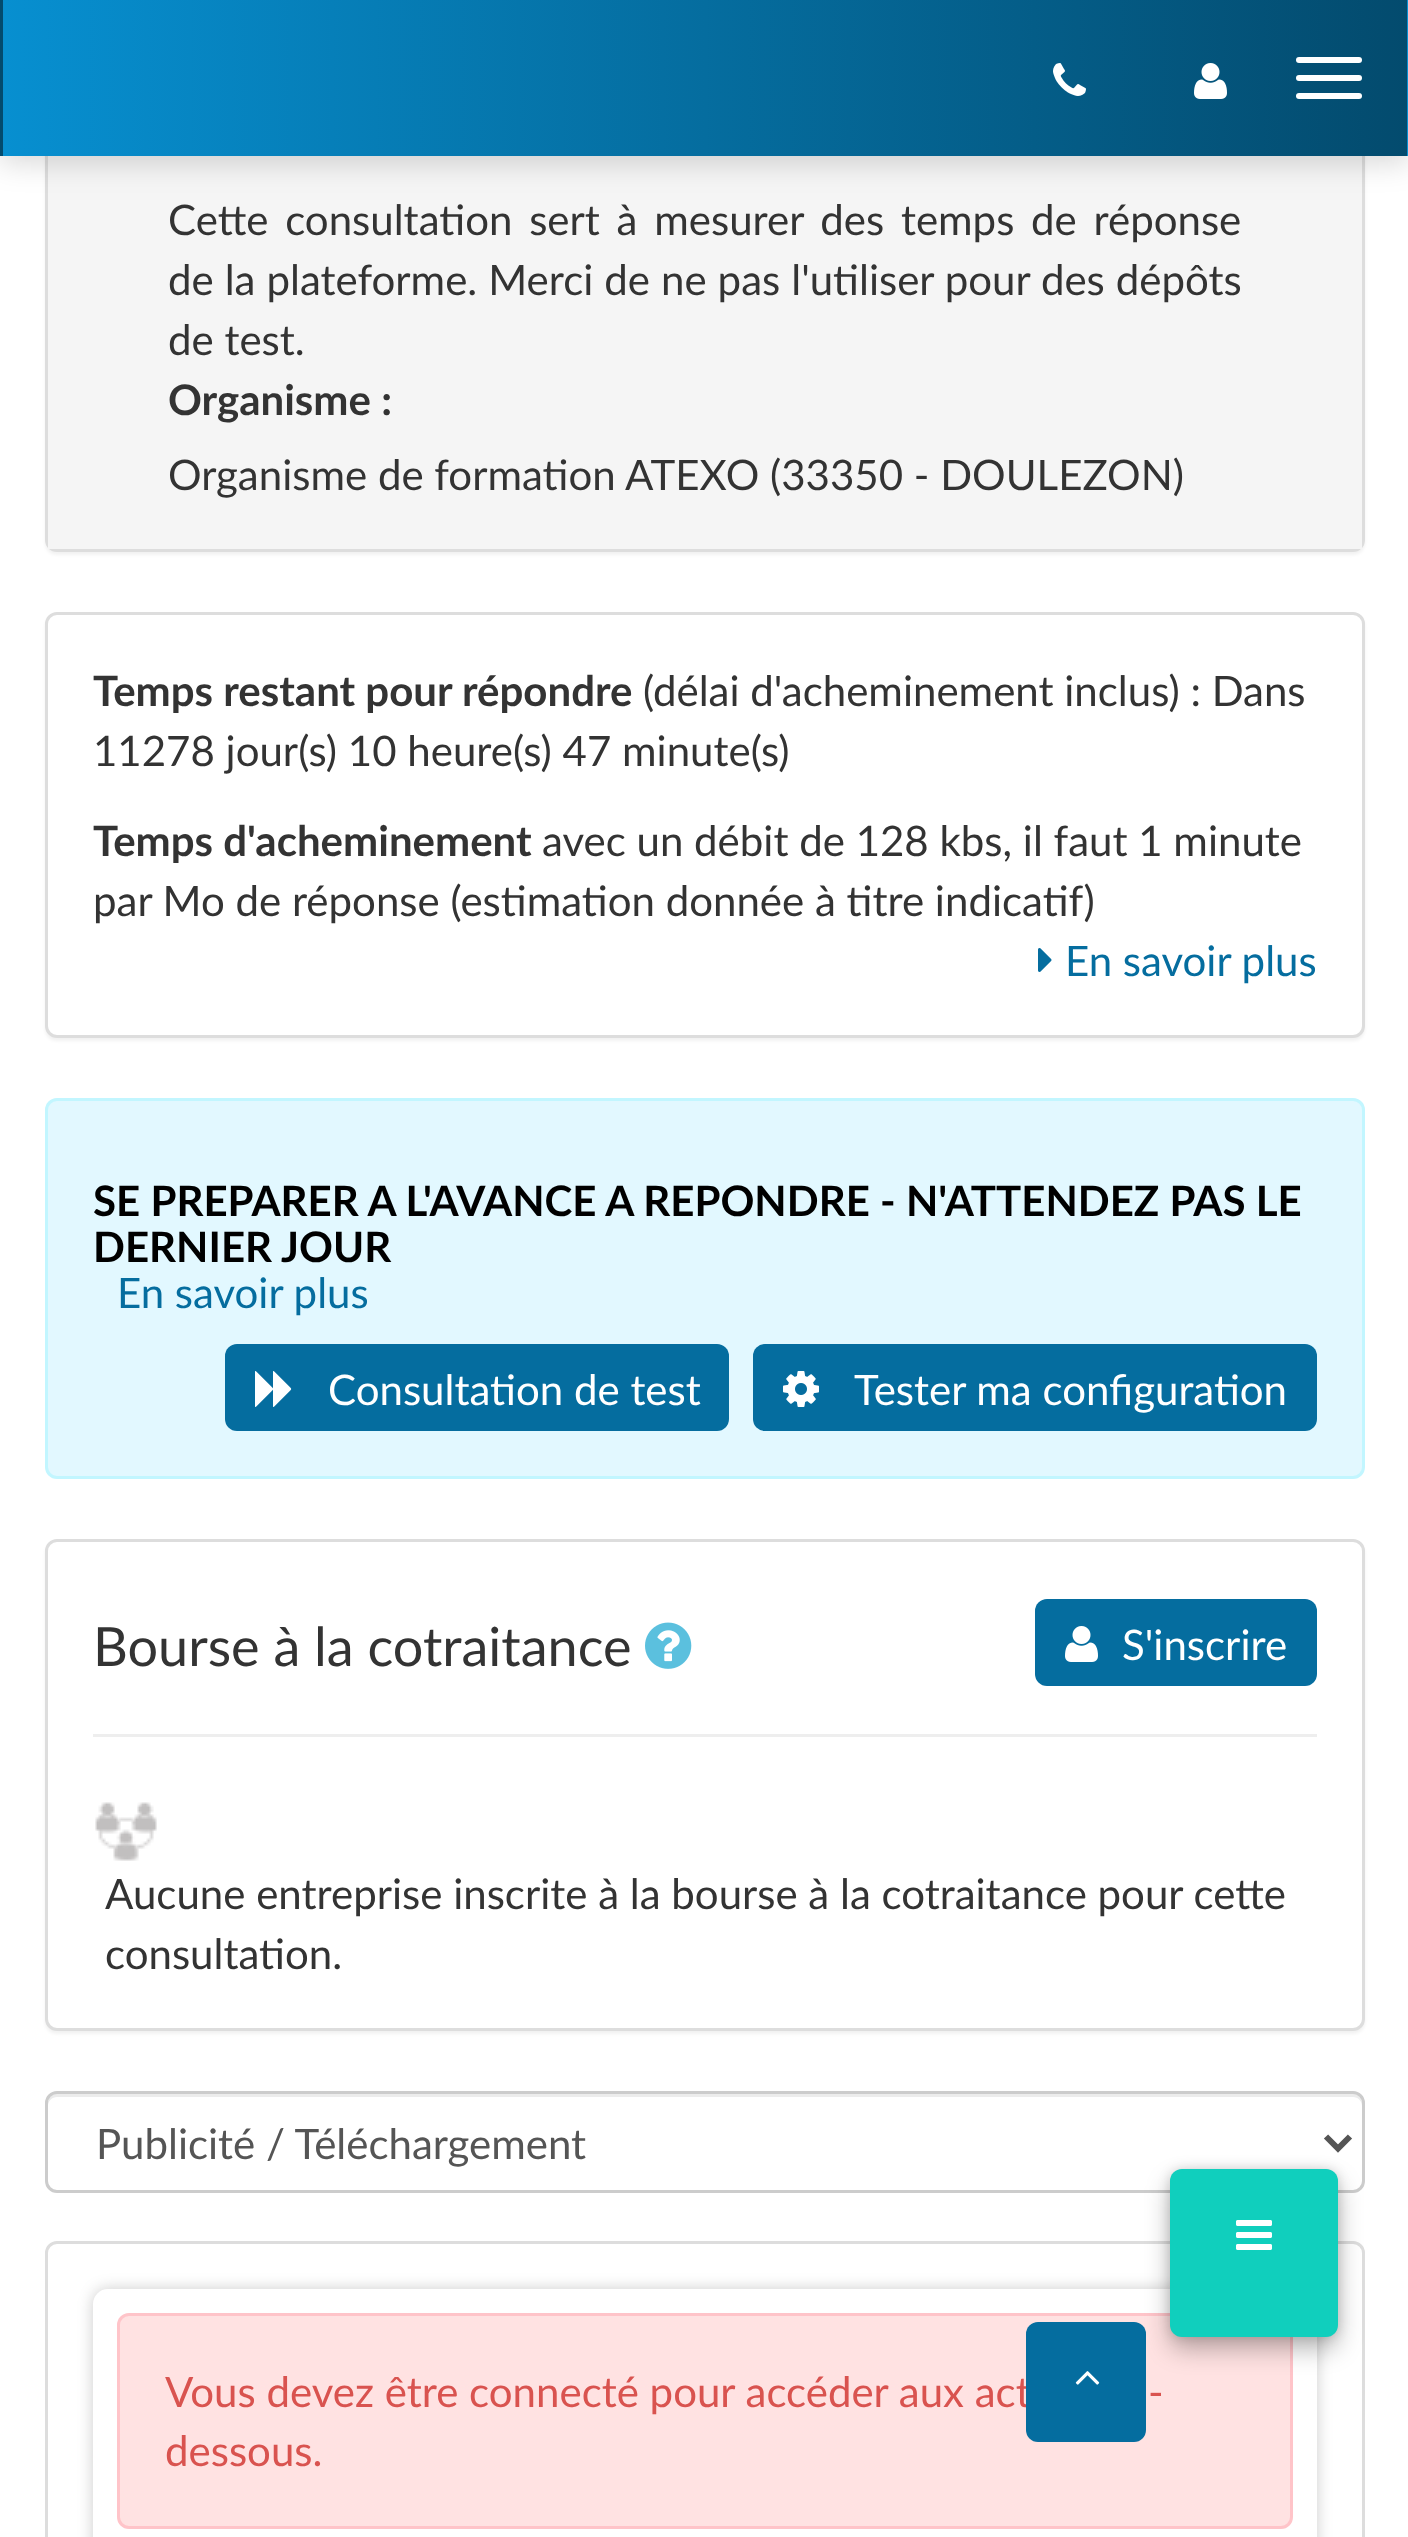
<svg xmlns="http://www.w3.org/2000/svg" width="1408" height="2537">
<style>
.a{font:42px Lato;fill:#333}
.b{font:bold 42px Lato;fill:#333}
.c{font:42px Lato;fill:#056d9f}
.d{font:bold 42px Lato;fill:#000}
.e{font:42px Lato;fill:#fff}
.f{font:54px Lato;fill:#333}
.g{font:42px Lato;fill:#555}
.h{font:42px Lato;fill:#d9534f}
</style>
<defs>
<linearGradient id="g1" gradientUnits="userSpaceOnUse" x1="-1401" y1="78" x2="3" y2="78"><stop offset="0" stop-color="#078fd0"/><stop offset="1" stop-color="#034b6e"/></linearGradient>
<linearGradient id="g2" gradientUnits="userSpaceOnUse" x1="3" y1="78" x2="1407" y2="78"><stop offset="0" stop-color="#078fd0"/><stop offset="1" stop-color="#034b6e"/></linearGradient>
<linearGradient id="g3" gradientUnits="userSpaceOnUse" x1="1407" y1="78" x2="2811" y2="78"><stop offset="0" stop-color="#078fd0"/><stop offset="1" stop-color="#034b6e"/></linearGradient>
</defs>
<rect width="100%" height="100%" fill="#fff"/>
<rect fill="#0000000d" filter="blur(1.5px)" x="45" y="-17" width="1320" height="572" rx="12"/>
<rect fill="none" stroke="#ddd" stroke-width="3" x="46.5" y="-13.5" width="1317" height="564" rx="10.5"/>
<path fill="#f5f5f5" d="M48 156h1314v393H48z"/>
<path fill="#00000029" filter="blur(15px)" d="M0 6h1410v156H0z"/>
<path fill="url(#g1)" d="M0 0h3v156H0z"/>
<path fill="url(#g2)" d="M3 0h1404v156H3z"/>
<path fill="url(#g3)" d="M1407 0h1v156H1407z"/>
<image href="1.png" x="1053" y="63" width="33" height="33"/>
<image href="2.png" x="1194" y="63" width="33" height="36"/>
<rect fill="#fff" x="1296" y="57" width="66" height="6" rx="3"/>
<rect fill="#fff" x="1296" y="75" width="66" height="6" rx="3"/>
<rect fill="#fff" x="1296" y="93" width="66" height="6" rx="3"/>
<rect fill="#0000000d" filter="blur(1.5px)" x="45" y="615" width="1320" height="426" rx="12"/>
<rect fill="#fff" stroke="#ddd" stroke-width="3" x="46.5" y="613.5" width="1317" height="423" rx="10.5"/>
<image href="3.png" x="1038" y="948" width="14" height="24"/>
<rect fill="#e2f8ff" x="45" y="1098" width="1320" height="381" rx="12"/>
<rect fill="none" stroke="#45f1ff33" stroke-width="3" x="46.5" y="1099.5" width="1317" height="378" rx="10.5"/>
<rect fill="#056d9f" x="225" y="1344" width="504" height="87" rx="12"/>
<image href="4.png" x="255" y="1371" width="37" height="36"/>
<rect fill="#056d9f" x="753" y="1344" width="564" height="87" rx="12"/>
<image href="5.png" x="783" y="1371" width="36" height="36"/>
<rect fill="#0000000d" filter="blur(1.5px)" x="45" y="1542" width="1320" height="492" rx="12"/>
<rect fill="#fff" stroke="#ddd" stroke-width="3" x="46.5" y="1540.5" width="1317" height="489" rx="10.5"/>
<path fill="#eee" d="M93 1734h1224v3H93z"/>
<image href="6.png" x="645" y="1622" width="47" height="47"/>
<rect fill="#056d9f" x="1035" y="1599" width="282" height="87" rx="12"/>
<image href="7.png" x="1065" y="1626" width="33" height="36"/>
<image href="8.png" x="95" y="1802" width="62" height="59"/>
<path fill="#ececec" d="M57 2097h1296c5 0 9 4 9 9v-3c0-5-4-9-9-9h-1296c-5 0-9 4-9 9v3c0-5 4-9 9-9z"/>
<rect fill="none" stroke="#ccc" stroke-width="3" x="46.5" y="2092.5" width="1317" height="99" rx="10.5"/>
<path fill="none" stroke="#555" stroke-width="6" d="M1326 2136.5l12 12l12-12"/>
<rect fill="none" stroke="#ddd" stroke-width="3" x="46.5" y="2242.5" width="1317" height="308" rx="10.5"/>
<rect fill="#02020233" filter="blur(7.5px)" x="93" y="2289" width="1224" height="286" rx="15"/>
<rect fill="#fff" x="93" y="2289" width="1224" height="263" rx="15"/>
<rect fill="#ffe2e2" x="117" y="2313" width="1176" height="216" rx="12"/>
<rect fill="none" stroke="#ff506933" stroke-width="3" x="118.5" y="2314.5" width="1173" height="213" rx="10.5"/>
<rect fill="#00000024" filter="blur(6px)" x="1170" y="2169" width="168" height="168" rx="12"/>
<text class="a" x="168" y="235" word-spacing="6">Cette consultation sert à mesurer des temps de réponse</text>
<text class="a" x="168" y="295" word-spacing="0.25">de la plateforme. Merci de ne pas l'utiliser pour des dépôts</text>
<text class="a" x="168" y="355">de test.</text>
<text class="b" x="168" y="415">Organisme :</text>
<text class="a" x="168" y="490">Organisme de formation ATEXO (33350 - DOULEZON)</text>
<text class="b" x="93" y="706">Temps restant pour répondre</text>
<text class="a" x="643" y="706">(délai d'acheminement inclus) : Dans</text>
<text class="a" x="93" y="766">11278 jour(s) 10 heure(s) 47 minute(s)</text>
<text class="b" x="93" y="856">Temps d'acheminement</text>
<text class="a" x="542" y="856">avec un débit de 128 kbs, il faut 1 minute</text>
<text class="a" x="93" y="916">par Mo de réponse (estimation donnée à titre indicatif)</text>
<text class="c" x="1065" y="976">En savoir plus</text>
<text class="d" x="93" y="1216">SE PREPARER A L'AVANCE A REPONDRE - N'ATTENDEZ PAS LE</text>
<text class="d" x="93" y="1262">DERNIER JOUR</text>
<text class="c" x="117" y="1308">En savoir plus</text>
<text class="e" x="328" y="1405">Consultation de test</text>
<text class="e" x="854" y="1405">Tester ma configuration</text>
<text class="f" x="93" y="1666">Bourse à la cotraitance</text>
<text class="e" x="1122" y="1660">S'inscrire</text>
<text class="a" x="105" y="1909">Aucune entreprise inscrite à la bourse à la cotraitance pour cette</text>
<text class="a" x="105" y="1969">consultation.</text>
<text class="g" x="96" y="2159">Publicité / Téléchargement</text>
<text class="h" x="165" y="2407">Vous devez être connecté pour accéder aux act</text>
<text class="h" x="1148" y="2407">-</text>
<text class="h" x="165" y="2466">dessous.</text>
<rect fill="#056d9f" x="1026" y="2322" width="120" height="120" rx="12"/>
<rect fill="#00000047" filter="blur(12px)" x="1170" y="2181" width="168" height="168" rx="12"/>
<rect fill="#10cfbd" x="1170" y="2169" width="168" height="168" rx="12"/>
<image href="9.png" x="1236" y="2220" width="36" height="30"/>
<image href="10.png" x="1075" y="2371" width="25" height="14"/>
</svg>
